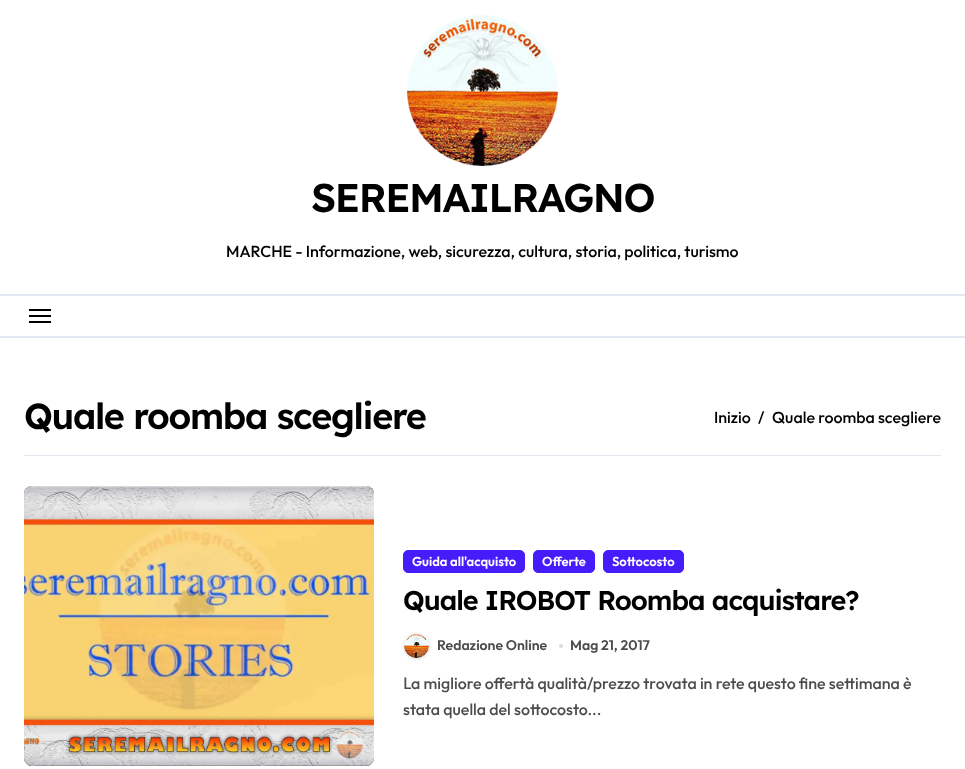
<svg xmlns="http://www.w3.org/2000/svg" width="965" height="769">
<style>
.a{font:600 40px Lexend Deca;letter-spacing:-1.5px;fill:#000}
.b{font:500 16px Outfit;fill:#000}
.c{font:600 36px Lexend Deca;letter-spacing:-1.3px;fill:#000}
.d{font:600 13px Outfit;fill:#fff}
.e{font:600 27px Lexend Deca;letter-spacing:-1px;fill:#000}
.f{font:600 14px Outfit;fill:#4c4c4c}
.g{font:500 16px Noto Sans;fill:#4c4c4c}
.h{font:500 16px Outfit;fill:#4c4c4c}
</style>
<rect width="100%" height="100%" fill="#fff"/>
<image href="1.png" x="407" y="15" width="151" height="151"/>
<path fill="#e2e8f0" d="M0 294h965v2H0z"/>
<path fill="#e2e8f0" d="M0 336h965v2H0z"/>
<path fill="#000" d="M29 309h22v2H29z"/>
<path fill="#000" d="M29 315h22v2H29z"/>
<path fill="#000" d="M29 321h22v2H29z"/>
<path fill="#e2e8f0" d="M24 455h917v1H24z"/>
<rect fill="#333" x="24" y="486" width="350" height="280" rx="8"/>
<image href="2.png" x="24" y="486" width="350" height="280"/>
<rect fill="#461cfb" stroke="#461cfb" x="403.5" y="550.5" width="121" height="22" rx="4.5"/>
<rect fill="#461cfb" stroke="#461cfb" x="533.5" y="550.5" width="61" height="22" rx="4.5"/>
<rect fill="#461cfb" stroke="#461cfb" x="603.5" y="550.5" width="80" height="22" rx="4.5"/>
<rect fill="#00000026" filter="blur(1.5px)" x="404" y="634" width="25" height="25" rx="12.5"/>
<image href="3.png" x="404" y="633" width="25" height="25"/>
<circle fill="#dbdbdb" cx="561" cy="646" r="2"/>
<text class="a" x="311" y="212">SEREMAILRAGNO</text>
<text class="b" x="226" y="257">MARCHE - Informazione, web, sicurezza, cultura, storia, politica, turismo</text>
<text class="c" x="24" y="429">Quale roomba scegliere</text>
<text class="b" x="714" y="423">Inizio</text>
<text class="b" x="758" y="423">/</text>
<text class="b" x="772" y="423">Quale roomba scegliere</text>
<text class="d" x="412" y="566">Guida all'acquisto</text>
<text class="d" x="542" y="566">Offerte</text>
<text class="d" x="612" y="566">Sottocosto</text>
<text class="e" x="403" y="610">Quale IROBOT Roomba acquistare?</text>
<text class="f" x="437" y="650">Redazione Online</text>
<text class="f" x="570" y="650">Mag 21, 2017</text>
<text class="g" x="403" y="689">L</text>
<text class="h" x="411" y="689">a migliore offertà qualità/prezzo trovata in rete questo fine settimana è</text>
<text class="h" x="403" y="715">stata quella del sottocosto...</text>
</svg>
